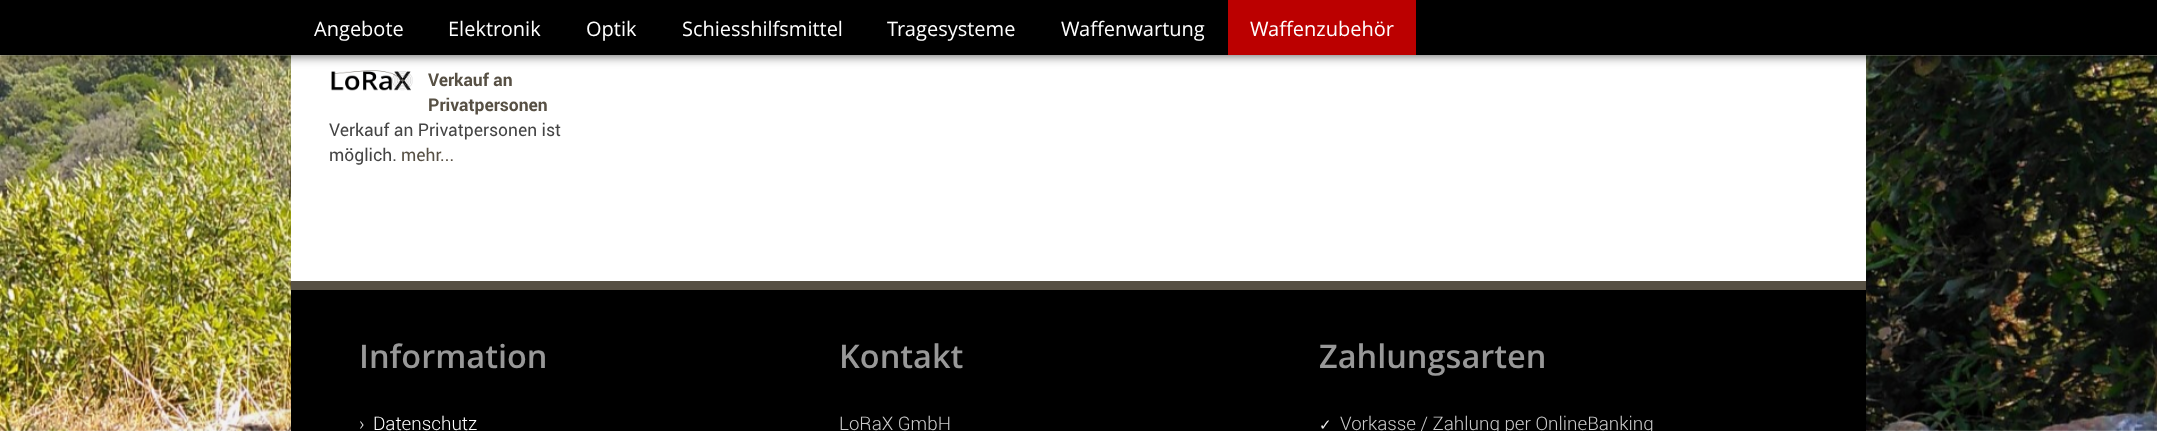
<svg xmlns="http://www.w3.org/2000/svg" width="2157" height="431">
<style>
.a{font:20px Open Sans;fill:#fff}
.b{font:bold 17.5px Roboto;fill:#575044}
.c{font:17.5px Roboto;fill:#444}
.d{font:17.5px Roboto;fill:#575044}
.e{font:600 32.5px Open Sans;fill:#989898}
.f{font:300 18.75px Roboto;fill:#eee}
.g{font:300 18.75px Roboto;fill:#fff}
.h{font:300 18.75px Roboto;fill:#ccc}
.i{font:15px DejaVu Sans;fill:#eee}
</style>
<rect width="100%" height="100%" fill="#fff"/>
<image href="1.png" x="0" y="55" width="2157" height="376"/>
<rect fill="#0000001a" filter="blur(187.5px)" x="291" y="-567" width="1575" height="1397" rx="4"/>
<path fill="#fff" d="M291 55h1575v226H291z"/>
<image href="2.png" x="331" y="70" width="82" height="21"/>
<path fill="#000000b3" filter="blur(6px)" d="M0 0h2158v55H0z"/>
<path fill="#000" d="M0 0h2157v55H0z"/>
<path fill="#b00" d="M1228 0h188v55H1228z"/>
<path fill="#000" d="M291 290h1575v141H291z"/>
<path fill="#575044" d="M291 281h1575v9H291z"/>
<text class="a" x="314" y="36">Angebote</text>
<text class="a" x="448" y="36">Elektronik</text>
<text class="a" x="586" y="36">Optik</text>
<text class="a" x="682" y="36">Schiesshilfsmittel</text>
<text class="a" x="887" y="36">Tragesysteme</text>
<text class="a" x="1061" y="36">Waffenwartung</text>
<text class="a" x="1250" y="36">Waffenzubehör</text>
<text class="b" x="428" y="86">Verkauf an</text>
<text class="b" x="428" y="111">Privatpersonen</text>
<text class="c" x="329" y="136">Verkauf an Privatpersonen ist</text>
<text class="c" x="329" y="161">möglich.</text>
<text class="d" x="401" y="161">mehr...</text>
<text class="e" x="359" y="368">Information</text>
<text class="f" x="359" y="430">›</text>
<text class="g" x="373" y="430">Datenschutz</text>
<text class="e" x="839" y="368">Kontakt</text>
<text class="h" x="839" y="430">LoRaX GmbH</text>
<text class="e" x="1319" y="368">Zahlungsarten</text>
<text class="i" x="1319" y="430">✓</text>
<text class="h" x="1340" y="430">Vorkasse / Zahlung per OnlineBanking</text>
</svg>
